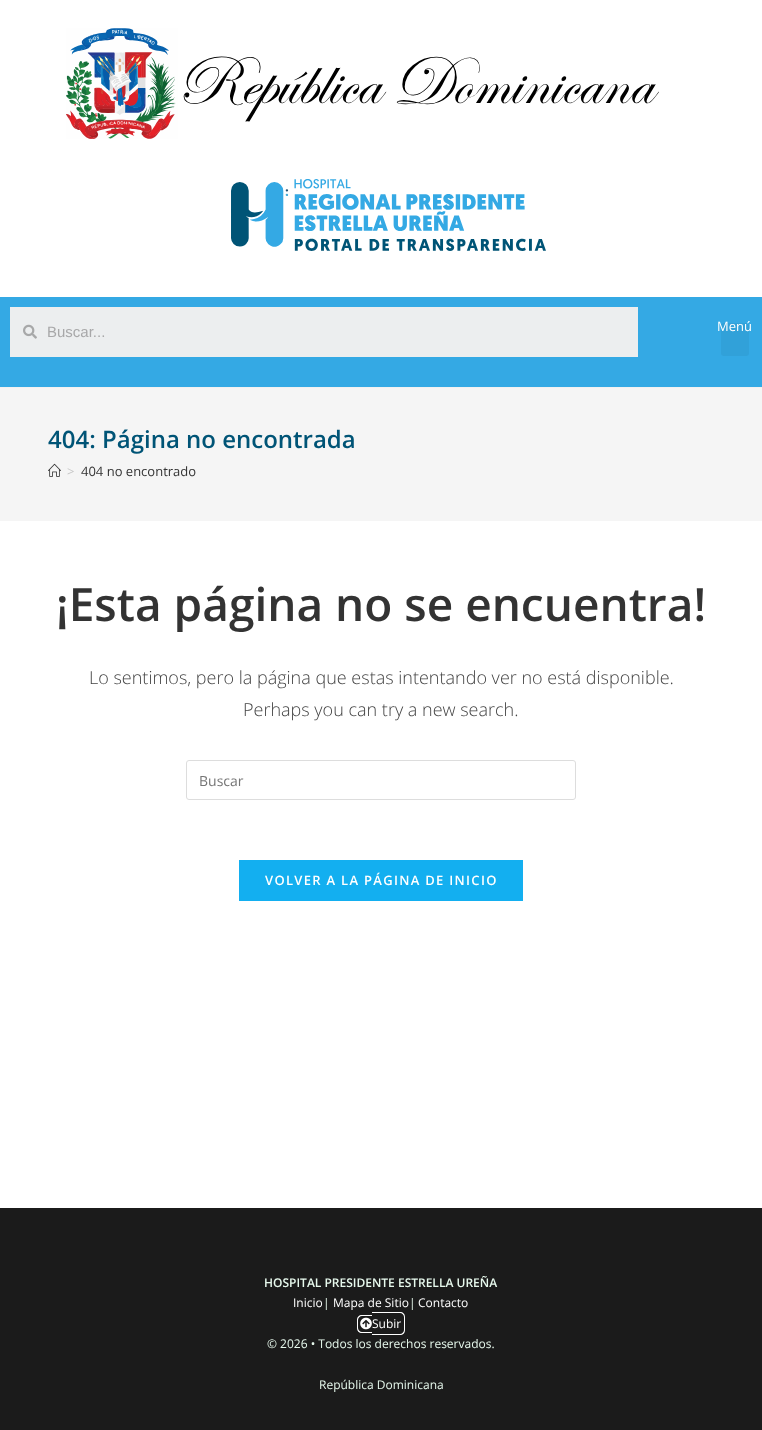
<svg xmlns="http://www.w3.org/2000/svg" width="762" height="1430">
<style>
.a{font:15px Liberation Sans;fill:#a8a8a9}
.b{font:13px Open Sans;fill:#fff}
.c{font:600 24px Open Sans;fill:#005476}
.d{font:13px Open Sans;fill:#c6c6c6}
.e{font:13px Open Sans;fill:#333}
.f{font:600 46px Open Sans;fill:#333}
.g{font:300 18px Open Sans;fill:#444}
.h{font:14px Open Sans;fill:#757575}
.i{font:600 13px Open Sans;letter-spacing:1.3px;fill:#fff}
.j{font:600 12px Open Sans;fill:#e7f9ed}
.k{font:12px Open Sans;fill:#fff}
.l{font:12px Open Sans;fill:#e7f9ed}
</style>
<rect width="100%" height="100%" fill="#fff"/>
<path fill="#f1f1f1" d="M0 387h762v1H0z"/>
<image href="1.png" x="66" y="28" width="593" height="111"/>
<image href="2.png" x="231" y="179" width="315" height="72"/>
<path fill="#34a9e4" d="M0 297h762v90H0z"/>
<path fill="#eceeef" d="M10 307h628v50H10z"/>
<image href="3.png" x="23" y="324" width="14" height="15"/>
<rect fill="#31a1d9" x="721" y="323" width="28" height="33" rx="3"/>
<path fill="#f5f5f5" d="M0 388h762v133H0z"/>
<image href="4.png" x="48" y="463" width="13" height="14"/>
<rect fill="none" stroke="#ddd" x="186.5" y="760.5" width="389" height="39" rx="2.5"/>
<path fill="#13aff0" d="M239 860h284v41H239z"/>
<path fill="#1b1b1b" d="M0 1208h762v222H0z"/>
<path fill="#fff" fill-rule="evenodd" d="M362 1315h10v18h-10c-3 0-5-2-5-5v-8c0-3 2-5 5-5zm0 1h10v16h-10c-2 0-4-2-4-4v-8c0-2 2-4 4-4zm10-4h28c3 0 5 2 5 5v13c0 3-2 5-5 5h-28zm0 1h28c2 0 4 2 4 4v13c0 2-2 4-4 4h-28z"/>
<image href="5.png" x="360" y="1317" width="12" height="13"/>
<text class="a" x="47" y="337">Buscar...</text>
<text class="b" x="717" y="331">Menú</text>
<text class="c" x="48" y="448">404: Página no encontrada</text>
<text class="d" x="67" y="476">&gt;</text>
<text class="e" x="81" y="476">404 no encontrado</text>
<text class="f" x="56" y="621">¡Esta página no se encuentra!</text>
<text class="g" x="89" y="684">Lo sentimos, pero la página que estas intentando ver no está disponible.</text>
<text class="g" x="243" y="716">Perhaps you can try a new search.</text>
<text class="h" x="199" y="786">Buscar</text>
<text class="i" x="265" y="885">VOLVER A LA PÁGINA DE INICIO</text>
<text class="j" x="264" y="1287">HOSPITAL PRESIDENTE ESTRELLA UREÑA</text>
<text class="k" x="293" y="1307">Inicio</text>
<text class="l" x="323" y="1307">|</text>
<text class="k" x="333" y="1307">Mapa de Sitio</text>
<text class="l" x="409" y="1307">|</text>
<text class="k" x="418" y="1307">Contacto</text>
<text class="k" x="372" y="1328">Subir</text>
<text class="l" x="267" y="1348">© 2026 • Todos los derechos reservados.</text>
<text class="l" x="319" y="1389">República Dominicana</text>
</svg>
